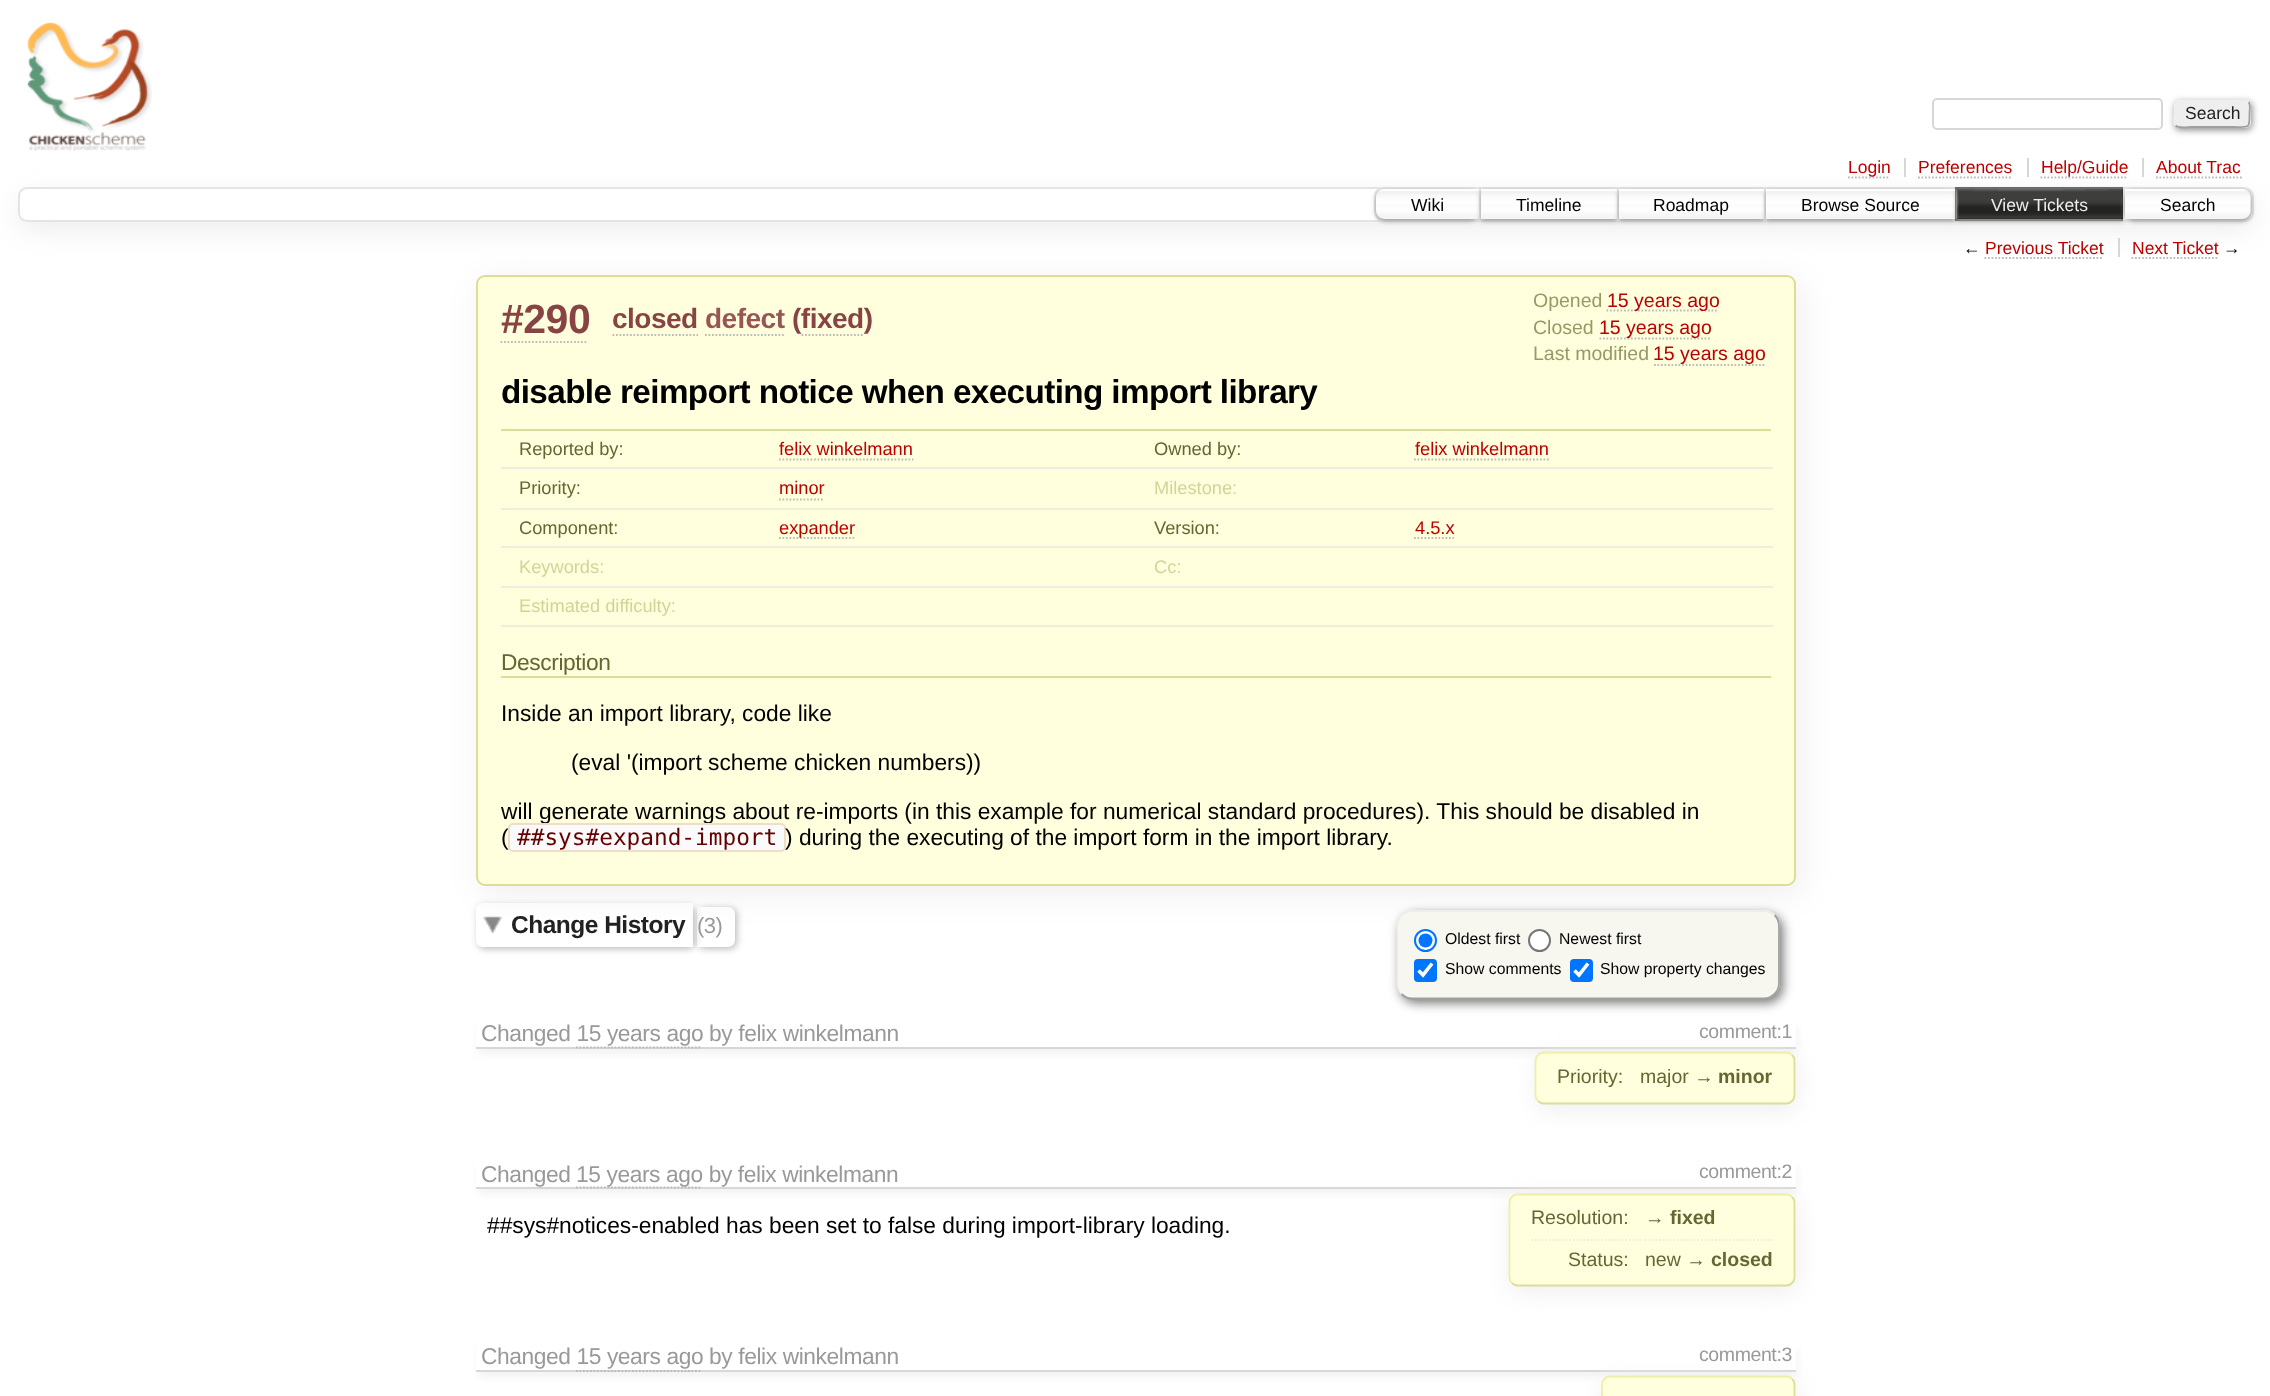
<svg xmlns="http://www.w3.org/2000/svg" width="2270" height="1396">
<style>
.a{font:17.5px Liberation Sans;fill:#222}
.b{font:17.5px Liberation Sans;fill:#b00}
.c{font:17.5px Liberation Sans;fill:#000}
.d{font:17.5px Liberation Sans;fill:#eee}
.e{font:bold 41px Liberation Sans;letter-spacing:-0.5px;fill:#844}
.f{font:bold 28px Liberation Sans;letter-spacing:-0.5px;fill:#844}
.g{font:bold 28px Liberation Sans;letter-spacing:-0.5px;fill:#955}
.h{font:19.5px Liberation Sans;fill:#996}
.i{font:19.5px Liberation Sans;fill:#b00}
.j{font:bold 33.25px Liberation Sans;letter-spacing:-0.6px;fill:#000}
.k{font:18.25px Liberation Sans;fill:#663}
.l{font:18.25px Liberation Sans;fill:#b00}
.m{font:18.25px Liberation Sans;fill:#d3d398}
.n{font:22.75px Liberation Sans;letter-spacing:-0.4px;fill:#663}
.o{font:22.75px Liberation Sans;fill:#000}
.p{font:22.75px DejaVu Sans Mono;fill:#600}
.q{font:bold 24.5px Liberation Sans;letter-spacing:-0.5px;fill:#222}
.r{font:22px Liberation Sans;letter-spacing:-0.5px;fill:#999}
.s{font:15.75px Liberation Sans;fill:#000}
.t{font:22.75px Liberation Sans;letter-spacing:-0.4px;fill:#999}
.u{font:19.5px Liberation Sans;letter-spacing:-0.4px;fill:#999}
.v{font:19.5px Liberation Sans;fill:#663}
.w{font:bold 19.5px Liberation Sans;fill:#663}
</style>
<defs>
<clipPath id="clip1"><path d="M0 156h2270v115h-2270zm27 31h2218c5 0 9 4 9 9v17c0 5-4 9-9 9h-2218c-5 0-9-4-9-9v-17c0-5 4-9 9-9z" clip-rule="evenodd"/></clipPath>
<clipPath id="clip2"><path d="M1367 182h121v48h-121zm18 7h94v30h-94c-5 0-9-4-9-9v-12c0-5 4-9 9-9z" clip-rule="evenodd"/></clipPath>
<clipPath id="clip3"><path d="M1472 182h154v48h-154zm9 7h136v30h-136z" clip-rule="evenodd"/></clipPath>
<clipPath id="clip4"><path d="M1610 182h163v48h-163zm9 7h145v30h-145z" clip-rule="evenodd"/></clipPath>
<clipPath id="clip5"><path d="M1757 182h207v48h-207zm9 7h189v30h-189z" clip-rule="evenodd"/></clipPath>
<clipPath id="clip6"><path d="M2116 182h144v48h-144zm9 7h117c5 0 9 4 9 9v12c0 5-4 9-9 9h-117z" clip-rule="evenodd"/></clipPath>
<clipPath id="clip7"><path d="M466 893h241v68h-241zm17 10h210v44h-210c-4 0-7-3-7-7v-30c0-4 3-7 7-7z" clip-rule="evenodd"/></clipPath>
<clipPath id="clip8"><path d="M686 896h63v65h-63zm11 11h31c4 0 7 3 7 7v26c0 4-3 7-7 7h-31z" clip-rule="evenodd"/></clipPath>
<clipPath id="clip9"><path d="M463 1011h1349v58h-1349zm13 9h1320v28h-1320z" clip-rule="evenodd"/></clipPath>
<clipPath id="clip10"><path d="M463 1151h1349v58h-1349zm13 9h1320v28h-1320z" clip-rule="evenodd"/></clipPath>
<clipPath id="clip11"><path d="M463 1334h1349v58h-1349zm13 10h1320v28h-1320z" clip-rule="evenodd"/></clipPath>
</defs>
<rect width="100%" height="100%" fill="#fff"/>
<image href="1.png" x="26" y="22" width="126" height="129"/>
<rect fill="none" stroke="#d7d7d7" stroke-width="2" x="1933" y="99" width="229" height="30" rx="4"/>
<rect fill="#888" filter="blur(3.5px)" x="2175" y="102" width="77" height="28" rx="5"/>
<rect fill="#eee" x="2174" y="100" width="77" height="28" rx="5"/>
<path fill="none" stroke="#9f9f9f" stroke-width="1.8" d="M2248.5 102c2.5 2.5 1 8.5 1 12c0 15 .5 13-15.5 13h-44c-1 0-11.5 1.5-14.5-1.5"/>
<path fill="none" stroke="#eee" stroke-width="1.8" d="M2175.5 125.5c-2.5-2.5-1-8.5-1-11.5c0-15.5-.5-13.5 15.5-13.5h44c1 0 11.5-1.5 14.5 1.5"/>
<g clip-path="url(#clip1)">
<rect fill="#eee" filter="blur(13px)" x="18" y="196" width="2236" height="35" rx="9"/>
</g>
<path fill="#d7d7d7" d="M1904 158h2v19H1904z"/>
<path fill="none" stroke="#bbb" stroke-width="1.8" stroke-dasharray="1.75 1.75" d="M1848 177.5h42"/>
<path fill="#d7d7d7" d="M2027 158h2v19H2027z"/>
<path fill="none" stroke="#bbb" stroke-width="1.8" stroke-dasharray="1.75 1.75" d="M1918 177.5h94.5"/>
<path fill="#d7d7d7" d="M2142 158h2v19H2142z"/>
<path fill="none" stroke="#bbb" stroke-width="1.8" stroke-dasharray="1.75 1.75" d="M2040.5 177.5h87.5"/>
<path fill="none" stroke="#bbb" stroke-width="1.8" stroke-dasharray="1.75 1.75" d="M2156 177.5h86"/>
<rect fill="none" stroke="#e4e4e4" stroke-width="2" x="19" y="188" width="2234" height="33" rx="8"/>
<path fill="#fff" d="M1383 187h98v34h-98c-5 0-9-4-9-9v-16c0-5 4-9 9-9z"/>
<image href="2.png" x="1374" y="191" width="105" height="28"/>
<path fill="none" stroke="#e4e4e4" stroke-width="2" d="M1383 188h97v32h-97c-4.5 0-8-3.5-8-8v-16c0-4.5 3.5-8 8-8z"/>
<g clip-path="url(#clip2)">
<rect fill="#999" filter="blur(2.5px)" x="1376" y="191" width="103" height="30" rx="9"/>
</g>
<path fill="#fff" d="M1481 193h3v26H1481z"/>
<image href="3.png" x="1481" y="191" width="136" height="28"/>
<path fill="none" stroke="#e4e4e4" stroke-width="2" d="M1480 188h138v32H1480z"/>
<g clip-path="url(#clip3)">
<path fill="#999" filter="blur(2.5px)" d="M1481 191h136v30H1481z"/>
</g>
<path fill="#fff" d="M1619 189h3v30H1619z"/>
<image href="4.png" x="1619" y="191" width="145" height="28"/>
<path fill="none" stroke="#e4e4e4" stroke-width="2" d="M1618 188h147v32H1618z"/>
<g clip-path="url(#clip4)">
<path fill="#999" filter="blur(2.5px)" d="M1619 191h145v30H1619z"/>
</g>
<path fill="#fff" d="M1766 189h3v30H1766z"/>
<image href="5.png" x="1766" y="191" width="189" height="28"/>
<path fill="none" stroke="#e4e4e4" stroke-width="2" d="M1765 188h191v32H1765z"/>
<g clip-path="url(#clip5)">
<path fill="#999" filter="blur(2.5px)" d="M1766 191h189v30H1766z"/>
</g>
<path fill="none" stroke="#666" stroke-width="2" d="M1956 188h168v32H1956z"/>
<path fill="#999" filter="blur(2.5px)" d="M1957 191h166v30H1957z"/>
<path fill="#000" d="M1957 189h166v30H1957z"/>
<image href="6.png" x="1956" y="189" width="167" height="30"/>
<path fill="#fff" d="M2123 187h120c5 0 9 4 9 9v16c0 5-4 9-9 9h-120z"/>
<image href="7.png" x="2125" y="191" width="127" height="28"/>
<path fill="none" stroke="#e4e4e4" stroke-width="2" d="M2124 188h119c4.5 0 8 3.5 8 8v16c0 4.5-3.5 8-8 8h-119z"/>
<g clip-path="url(#clip6)">
<rect fill="#999" filter="blur(2.5px)" x="2125" y="191" width="126" height="30" rx="9"/>
</g>
<path fill="#d7d7d7" d="M2118 238h2v19H2118z"/>
<path fill="none" stroke="#bbb" stroke-width="1.8" stroke-dasharray="1.75 1.75" d="M1984.5 258h119"/>
<path fill="none" stroke="#bbb" stroke-width="1.8" stroke-dasharray="1.75 1.75" d="M2131.5 258h87.5"/>
<g clip-path="url(#clip7)">
<rect fill="#bbb" filter="blur(3.5px)" x="478" y="905" width="217" height="44" rx="7"/>
</g>
<image href="8.png" x="483" y="916" width="20" height="18"/>
<rect fill="#eee" filter="blur(17px)" x="481" y="282" width="1320" height="611" rx="9"/>
<rect fill="#ffd" stroke="#dd9" stroke-width="2" x="477" y="276" width="1318" height="609" rx="8"/>
<path fill="none" stroke="#bbb" stroke-width="1.8" stroke-dasharray="1.75 1.75" d="M500.5 342h87.5"/>
<path fill="none" stroke="#bbb" stroke-width="1.8" stroke-dasharray="1.75 1.75" d="M612.5 335h85.5"/>
<path fill="none" stroke="#bbb" stroke-width="1.8" stroke-dasharray="1.75 1.75" d="M705 335h79"/>
<path fill="none" stroke="#bbb" stroke-width="1.8" stroke-dasharray="1.75 1.75" d="M801.5 335h63"/>
<path fill="none" stroke="#bbb" stroke-width="1.8" stroke-dasharray="1.75 1.75" d="M1606.5 310.5h112"/>
<path fill="none" stroke="#bbb" stroke-width="1.8" stroke-dasharray="1.75 1.75" d="M1599.5 338.5h110.5"/>
<path fill="none" stroke="#bbb" stroke-width="1.8" stroke-dasharray="1.75 1.75" d="M1654 365h112"/>
<path fill="#dd9" d="M501 429h1270v2H501z"/>
<path fill="#eed" d="M501 467h1272v2H501z"/>
<path fill="none" stroke="#bbb" stroke-width="1.8" stroke-dasharray="1.75 1.75" d="M779 459.5h134.5"/>
<path fill="none" stroke="#bbb" stroke-width="1.8" stroke-dasharray="1.75 1.75" d="M1414 459.5h135"/>
<path fill="#eed" d="M501 508h1272v2H501z"/>
<path fill="none" stroke="#bbb" stroke-width="1.8" stroke-dasharray="1.75 1.75" d="M779 499.5h45"/>
<path fill="#eed" d="M501 546h1272v2H501z"/>
<path fill="none" stroke="#bbb" stroke-width="1.8" stroke-dasharray="1.75 1.75" d="M779 538h77"/>
<path fill="none" stroke="#bbb" stroke-width="1.8" stroke-dasharray="1.75 1.75" d="M1414 538h40"/>
<path fill="#eed" d="M501 586h1272v2H501z"/>
<path fill="#eed" d="M501 625h1272v2H501z"/>
<path fill="#dd9" d="M501 676h1270v2H501z"/>
<g clip-path="url(#clip8)">
<rect fill="#bbb" filter="blur(3.5px)" x="698" y="908" width="39" height="41" rx="7"/>
</g>
<rect fill="#777" filter="blur(5.5px)" x="1400" y="914" width="383" height="89" rx="16"/>
<rect fill="#f7f7f0" x="1397" y="910" width="383" height="89" rx="16"/>
<path fill="none" stroke="#9f9f9f" stroke-width="1.8" d="M1774.5 915c3 3 4.5 7 4.5 11v57.5c0 4-1.5 7.5-4.5 10.5c-3 3-6.5 4.5-10.5 4.5h-352c-3.5 0-7.5-1.5-10.5-4.5"/>
<path fill="none" stroke="#eee" stroke-width="1.8" d="M1401.5 994c-2.5-3-4-6.5-4-10.5v-57.5c0-4 1.5-8 4-11c3-2.5 7-4 10.5-4h352c4 0 7.5 1.5 10.5 4"/>
<circle fill="#fff" stroke="#0075ff" stroke-width="2" cx="1425.5" cy="940.5" r="10.5"/>
<circle fill="#0075ff" cx="1425.5" cy="940.5" r="7"/>
<circle fill="#fff" stroke="#767676" stroke-width="2" cx="1539.5" cy="940.5" r="10.5"/>
<rect fill="#0075ff" x="1414" y="959" width="23" height="23" rx="4"/>
<path fill="none" stroke="#fff" stroke-width="3.6" d="M1418.5 970.5l4.5 4.5l9-11.5"/>
<rect fill="#0075ff" x="1570" y="959" width="23" height="23" rx="4"/>
<path fill="none" stroke="#fff" stroke-width="3.6" d="M1574.5 970.5l4.5 4.5l9-11.5"/>
<g clip-path="url(#clip9)">
<path fill="#f2f2f2" filter="blur(4.5px)" d="M478 1026h1319v28H478z"/>
</g>
<path fill="#d7d7d7" d="M476 1047h1320v2H476z"/>
<path fill="none" stroke="#bbb" stroke-width="1.8" stroke-dasharray="1.75 1.75" d="M576 1047.5h126"/>
<rect fill="#eee" filter="blur(11.5px)" x="1537" y="1057" width="260" height="53" rx="9"/>
<rect fill="#ffd" x="1535" y="1052" width="261" height="52" rx="9"/>
<path fill="none" stroke="#dd9" stroke-width="1.8" d="M1792 1055c2 1.5 2.5 3.5 2.5 6v34c0 2.5-.5 4.5-2.5 6c-1.5 1.5-3.5 2.5-5.5 2.5h-242.5c-2.5 0-4.5-1-6-2.5"/>
<path fill="none" stroke="#eea" stroke-width="1.8" d="M1538 1101c-1.5-1.5-2.5-3.5-2.5-6v-34c0-2.5 1-4.5 2.5-6c1.5-1.5 3.5-2.5 6-2.5h242.5c2 0 4 1 5.5 2.5"/>
<g clip-path="url(#clip10)">
<path fill="#f2f2f2" filter="blur(4.5px)" d="M478 1166h1319v28H478z"/>
</g>
<path fill="#d7d7d7" d="M476 1187h1320v2H476z"/>
<path fill="none" stroke="#bbb" stroke-width="1.8" stroke-dasharray="1.75 1.75" d="M576 1187.5h126"/>
<rect fill="#eee" filter="blur(11.5px)" x="1510" y="1199" width="287" height="93" rx="9"/>
<rect fill="#ffd" x="1509" y="1194" width="287" height="92" rx="9"/>
<path fill="none" stroke="#dd9" stroke-width="1.8" d="M1792 1197c2 1.5 2.5 3.5 2.5 5.5v74.5c0 2.5-.5 4.5-2.5 6c-1.5 1.5-3.5 2.5-5.5 2.5h-269c-2 0-4-1-5.5-2.5"/>
<path fill="none" stroke="#eea" stroke-width="1.8" d="M1512 1283c-2-1.5-2.5-3.5-2.5-6v-74.5c0-2 .5-4 2.5-5.5c1.5-2 3.5-2.5 5.5-2.5h269c2 0 4 .5 5.5 2.5"/>
<path fill="none" stroke="#eed" stroke-width="1.8" stroke-dasharray="1.75 1.75" d="M1531 1240h110.5"/>
<path fill="none" stroke="#eed" stroke-width="1.8" stroke-dasharray="1.75 1.75" d="M1645 1240h128"/>
<g clip-path="url(#clip11)">
<path fill="#f2f2f2" filter="blur(4.5px)" d="M478 1349h1319v28H478z"/>
</g>
<path fill="#d7d7d7" d="M476 1370h1320v2H476z"/>
<rect fill="#eee" filter="blur(11.5px)" x="1603" y="1381" width="194" height="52" rx="9"/>
<rect fill="#ffd" x="1601" y="1376" width="195" height="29" rx="9"/>
<path fill="none" stroke="#dd9" stroke-width="1.8" d="M1792 1379c2 1.5 2.5 3.5 2.5 5.5v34.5c0 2-.5 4-2.5 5.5c-1.5 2-3.5 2.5-5.5 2.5h-176c-2.5 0-4.5-.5-6-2.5"/>
<path fill="none" stroke="#eea" stroke-width="1.8" d="M1604.5 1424.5c-1.5-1.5-2.5-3.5-2.5-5.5v-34.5c0-2 1-4 2.5-5.5c1.5-2 3.5-2.5 6-2.5h176c2 0 4 .5 5.5 2.5"/>
<path fill="none" stroke="#bbb" stroke-width="1.8" stroke-dasharray="1.75 1.75" d="M576 1371h126"/>
<text class="a" x="2185" y="119">Search</text>
<text class="b" x="1848" y="173">Login</text>
<text class="b" x="1918" y="173">Preferences</text>
<text class="b" x="2041" y="173">Help/Guide</text>
<text class="b" x="2156" y="173">About Trac</text>
<text class="c" x="1411" y="211">Wiki</text>
<text class="c" x="1516" y="211">Timeline</text>
<text class="c" x="1653" y="211">Roadmap</text>
<text class="c" x="1801" y="211">Browse Source</text>
<text class="d" x="1991" y="211">View Tickets</text>
<text class="c" x="2160" y="211">Search</text>
<text class="c" x="1963" y="254">←</text>
<text class="b" x="1985" y="254">Previous Ticket</text>
<text class="b" x="2132" y="254">Next Ticket</text>
<text class="c" x="2223" y="254">→</text>
<text class="e" x="501" y="333">#290</text>
<text class="f" x="612" y="328">closed</text>
<text class="g" x="705" y="328">defect</text>
<text class="f" x="792" y="328">(fixed)</text>
<text class="h" x="1533" y="307">Opened</text>
<text class="i" x="1607" y="307">15 years ago</text>
<text class="h" x="1533" y="334">Closed</text>
<text class="i" x="1599" y="334">15 years ago</text>
<text class="h" x="1533" y="360">Last modified</text>
<text class="i" x="1653" y="360">15 years ago</text>
<text class="j" x="501" y="403">disable reimport notice when executing import library</text>
<text class="k" x="519" y="455">Reported by:</text>
<text class="l" x="779" y="455">felix winkelmann</text>
<text class="k" x="1154" y="455">Owned by:</text>
<text class="l" x="1415" y="455">felix winkelmann</text>
<text class="k" x="519" y="494">Priority:</text>
<text class="l" x="779" y="494">minor</text>
<text class="m" x="1154" y="494">Milestone:</text>
<text class="k" x="519" y="534">Component:</text>
<text class="l" x="779" y="534">expander</text>
<text class="k" x="1154" y="534">Version:</text>
<text class="l" x="1415" y="534">4.5.x</text>
<text class="m" x="519" y="573">Keywords:</text>
<text class="m" x="1154" y="573">Cc:</text>
<text class="m" x="519" y="612">Estimated difficulty:</text>
<text class="n" x="501" y="670">Description</text>
<text class="o" x="501" y="721">Inside an import library, code like</text>
<text class="o" x="571" y="770">(eval '(import scheme chicken numbers))</text>
<text class="o" x="501" y="819">will generate warnings about re-imports (in this example for numerical standard procedures). This should be disabled in</text>
<text class="o" x="501" y="845">(</text>
<rect fill="#fafafa" stroke="#edc" stroke-width="2" x="509" y="824" width="276" height="27" rx="4"/>
<text class="p" x="517" y="845">##sys#expand-import</text>
<text class="o" x="785" y="845">) during the executing of the import form in the import library.</text>
<text class="q" x="511" y="933">Change History</text>
<text class="r" x="697" y="933">(3)</text>
<text class="s" x="1445" y="944">Oldest first</text>
<text class="s" x="1559" y="944">Newest first</text>
<text class="s" x="1445" y="974">Show comments</text>
<text class="s" x="1600" y="974">Show property changes</text>
<text class="t" x="481" y="1041">Changed 15 years ago by felix winkelmann</text>
<text class="u" x="1699" y="1038">comment:1</text>
<text class="v" x="1557" y="1083">Priority:</text>
<text class="v" x="1640" y="1083">major →</text>
<text class="w" x="1718" y="1083">minor</text>
<text class="t" x="481" y="1182">Changed</text>
<text class="t" x="576" y="1182">15 years ago by felix winkelmann</text>
<text class="u" x="1699" y="1178">comment:2</text>
<text class="o" x="487" y="1233">##sys#notices-enabled has been set to false during import-library loading.</text>
<text class="v" x="1531" y="1224">Resolution:</text>
<text class="v" x="1645" y="1224">→</text>
<text class="w" x="1670" y="1224">fixed</text>
<text class="v" x="1568" y="1266">Status:</text>
<text class="v" x="1645" y="1266">new →</text>
<text class="w" x="1711" y="1266">closed</text>
<text class="t" x="481" y="1364">Changed 15 years ago by felix winkelmann</text>
<text class="u" x="1699" y="1361">comment:3</text>
</svg>
